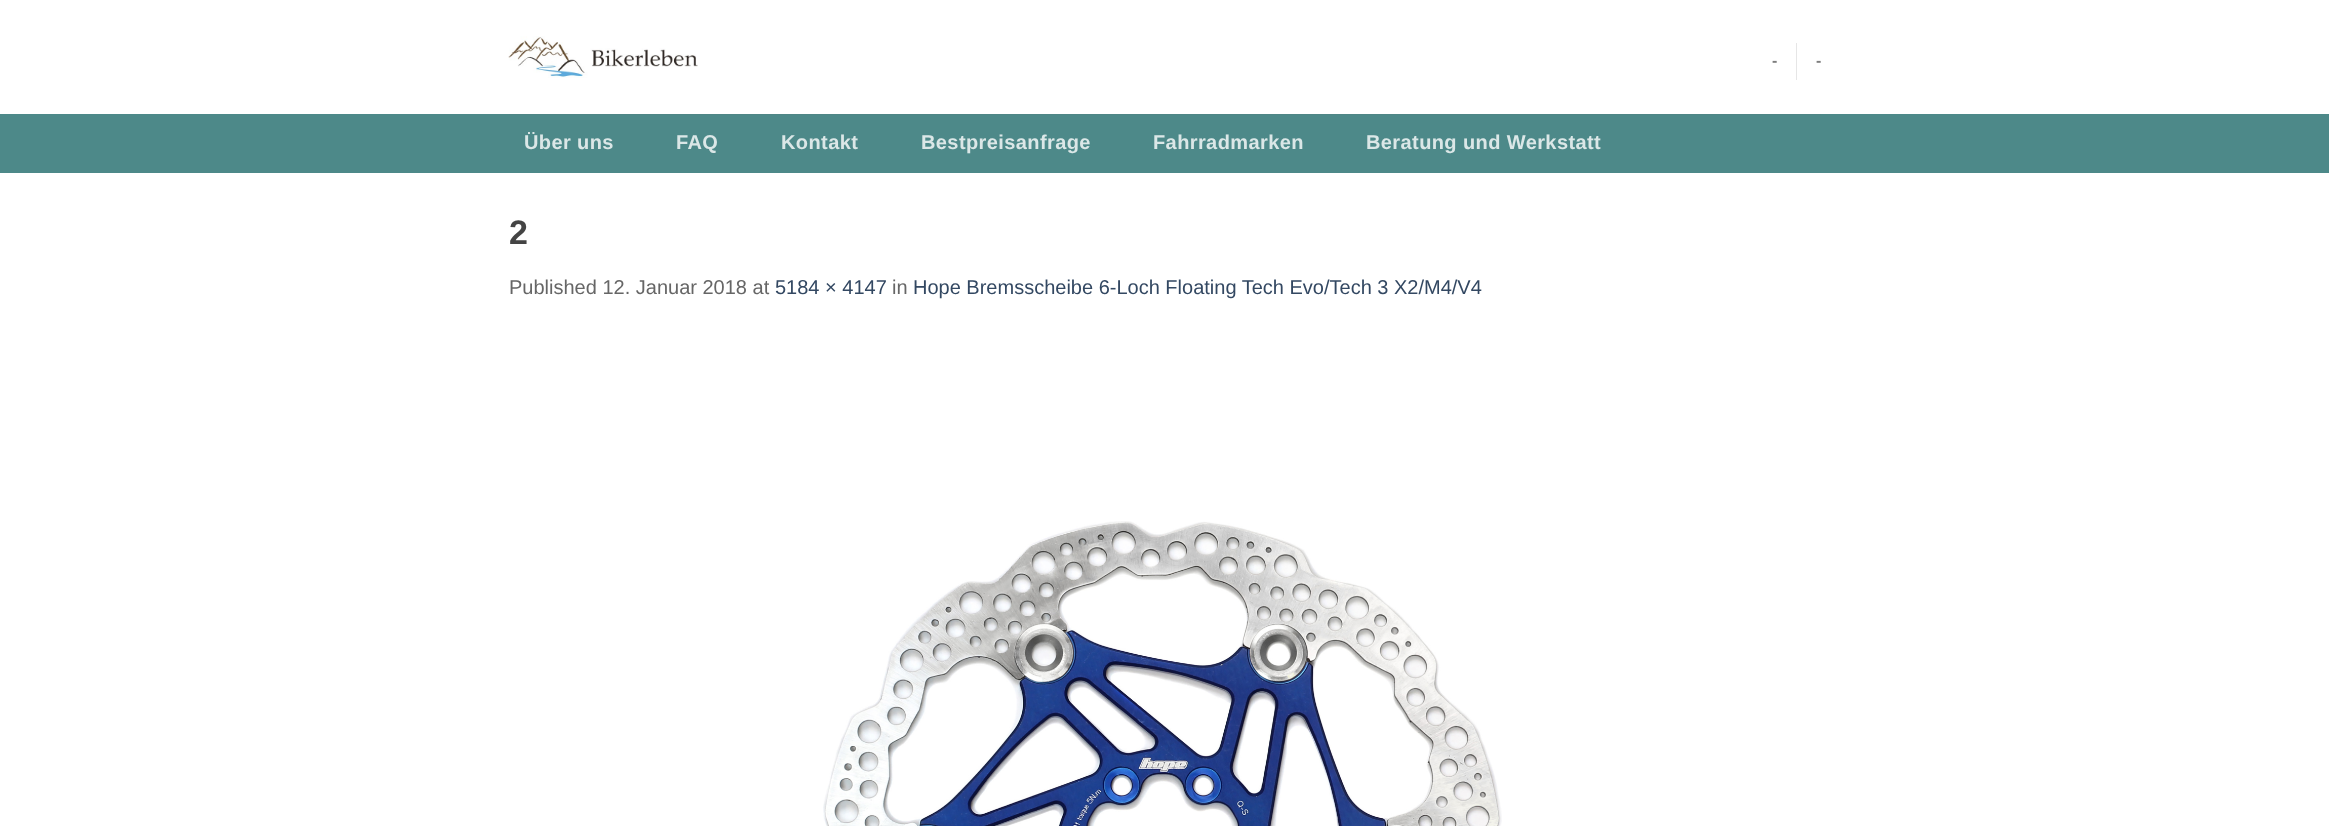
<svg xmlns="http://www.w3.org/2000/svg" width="2329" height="826">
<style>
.a{font:bold 16px Liberation Sans;fill:#7d7d7d}
.b{font:bold 20px Liberation Sans;letter-spacing:0.4px;fill:#dbe7e7}
.c{font:bold 34px Liberation Sans;fill:#444}
.d{font:20px Liberation Sans;fill:#666}
.e{font:20px Liberation Sans;fill:#334862}
</style>
<rect width="100%" height="100%" fill="#fff"/>
<image href="1.png" x="508" y="36" width="190" height="42"/>
<path fill="#e6e6e6" d="M1796 43h1v37H1796z"/>
<path fill="#4d8989" d="M0 114h2329v59H0z"/>
<path fill="#4f8686" d="M509 114h1312v1H509z"/>
<image href="2.png" x="823" y="521" width="679" height="305"/>
<text class="a" x="1772" y="66">-</text>
<text class="a" x="1816" y="66">-</text>
<text class="b" x="524" y="149">Über uns</text>
<text class="b" x="676" y="149">FAQ</text>
<text class="b" x="781" y="149">Kontakt</text>
<text class="b" x="921" y="149">Bestpreisanfrage</text>
<text class="b" x="1153" y="149">Fahrradmarken</text>
<text class="b" x="1366" y="149">Beratung und Werkstatt</text>
<text class="c" x="509" y="244">2</text>
<text class="d" x="509" y="294">Published 12. Januar 2018 at</text>
<text class="e" x="775" y="294">5184 × 4147</text>
<text class="d" x="892" y="294">in</text>
<text class="e" x="913" y="294">Hope Bremsscheibe 6-Loch Floating Tech Evo/Tech 3 X2/M4/V4</text>
</svg>
